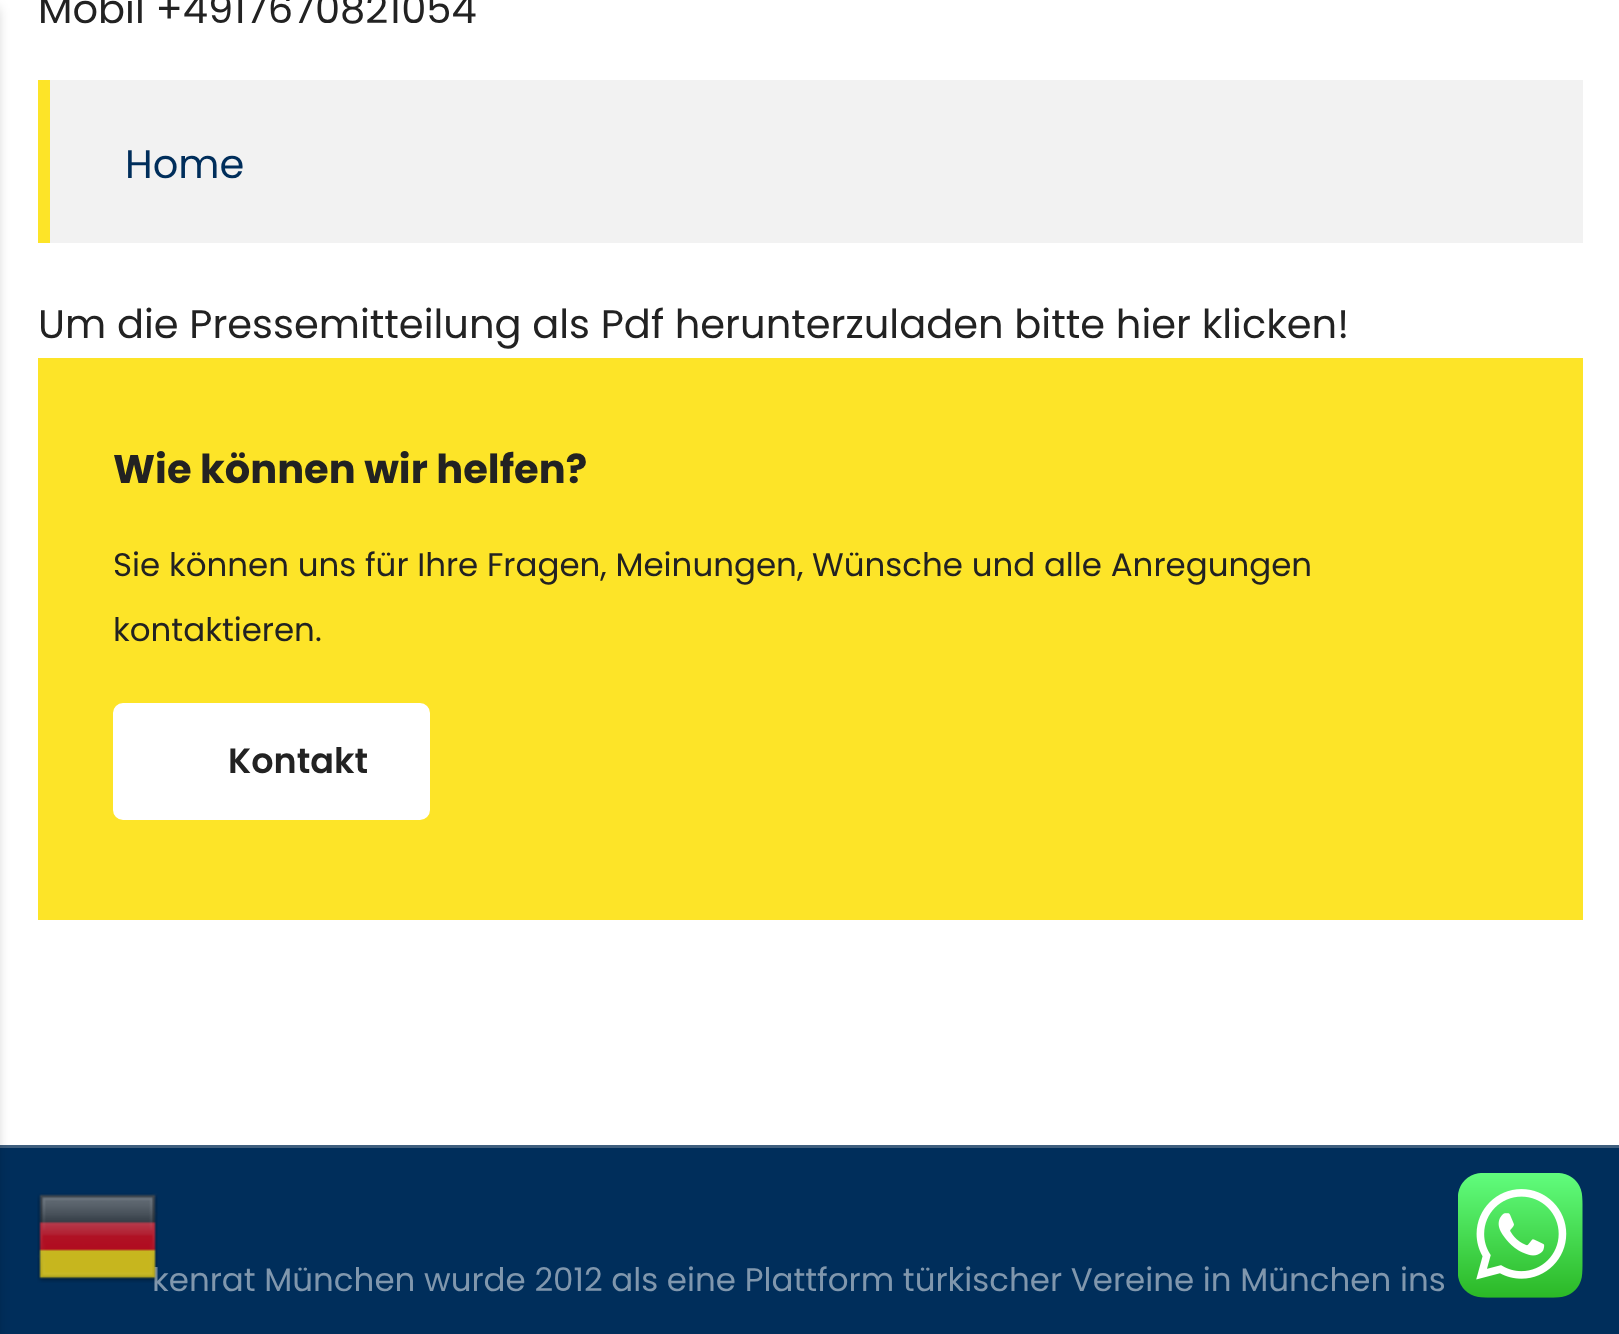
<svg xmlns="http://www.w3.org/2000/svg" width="1619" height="1334">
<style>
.a{font:40px Poppins;fill:#222}
.b{font:40px Poppins;fill:#002e5b}
.c{font:bold 40px Poppins;fill:#222}
.d{font:32.5px Poppins;fill:#222}
.e{font:600 35px Poppins;fill:#222}
.f{font:32.5px Poppins;fill:#8097ad}
</style>
<rect width="100%" height="100%" fill="#fff"/>
<path fill="#002e5b" d="M0 1148h1619v186H0z"/>
<path fill="#3f5f7e" d="M0 1145h1619v3H0z"/>
<path fill="#00000033" filter="blur(6px)" d="M-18 8h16v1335H-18z"/>
<path fill="#f2f2f2" d="M50 80h1533v163H50z"/>
<path fill="#fde428" d="M38 80h12v163H38z"/>
<path fill="#fde428" d="M38 358h1545v562H38z"/>
<rect fill="#fff" stroke="#fff" stroke-width="8" x="117" y="707" width="309" height="109" rx="6"/>
<image href="2.png" x="1458" y="1173" width="125" height="125"/>
<text class="a" x="38" y="23">Mobil +4917670821054</text>
<text class="b" x="125" y="178">Home</text>
<text class="a" x="38" y="338">Um die Pressemitteilung als Pdf herunterzuladen bitte hier klicken!</text>
<text class="c" x="113" y="483">Wie können wir helfen?</text>
<text class="d" x="113" y="576">Sie können uns für Ihre Fragen, Meinungen, Wünsche und alle Anregungen</text>
<text class="d" x="113" y="641">kontaktieren.</text>
<text class="e" x="228" y="773">Kontakt</text>
<text class="f" x="152" y="1291">kenrat München wurde 2012 als eine Plattform türkischer Vereine in München ins</text>
<image href="1.png" x="37" y="1193" width="121" height="90"/>
</svg>
